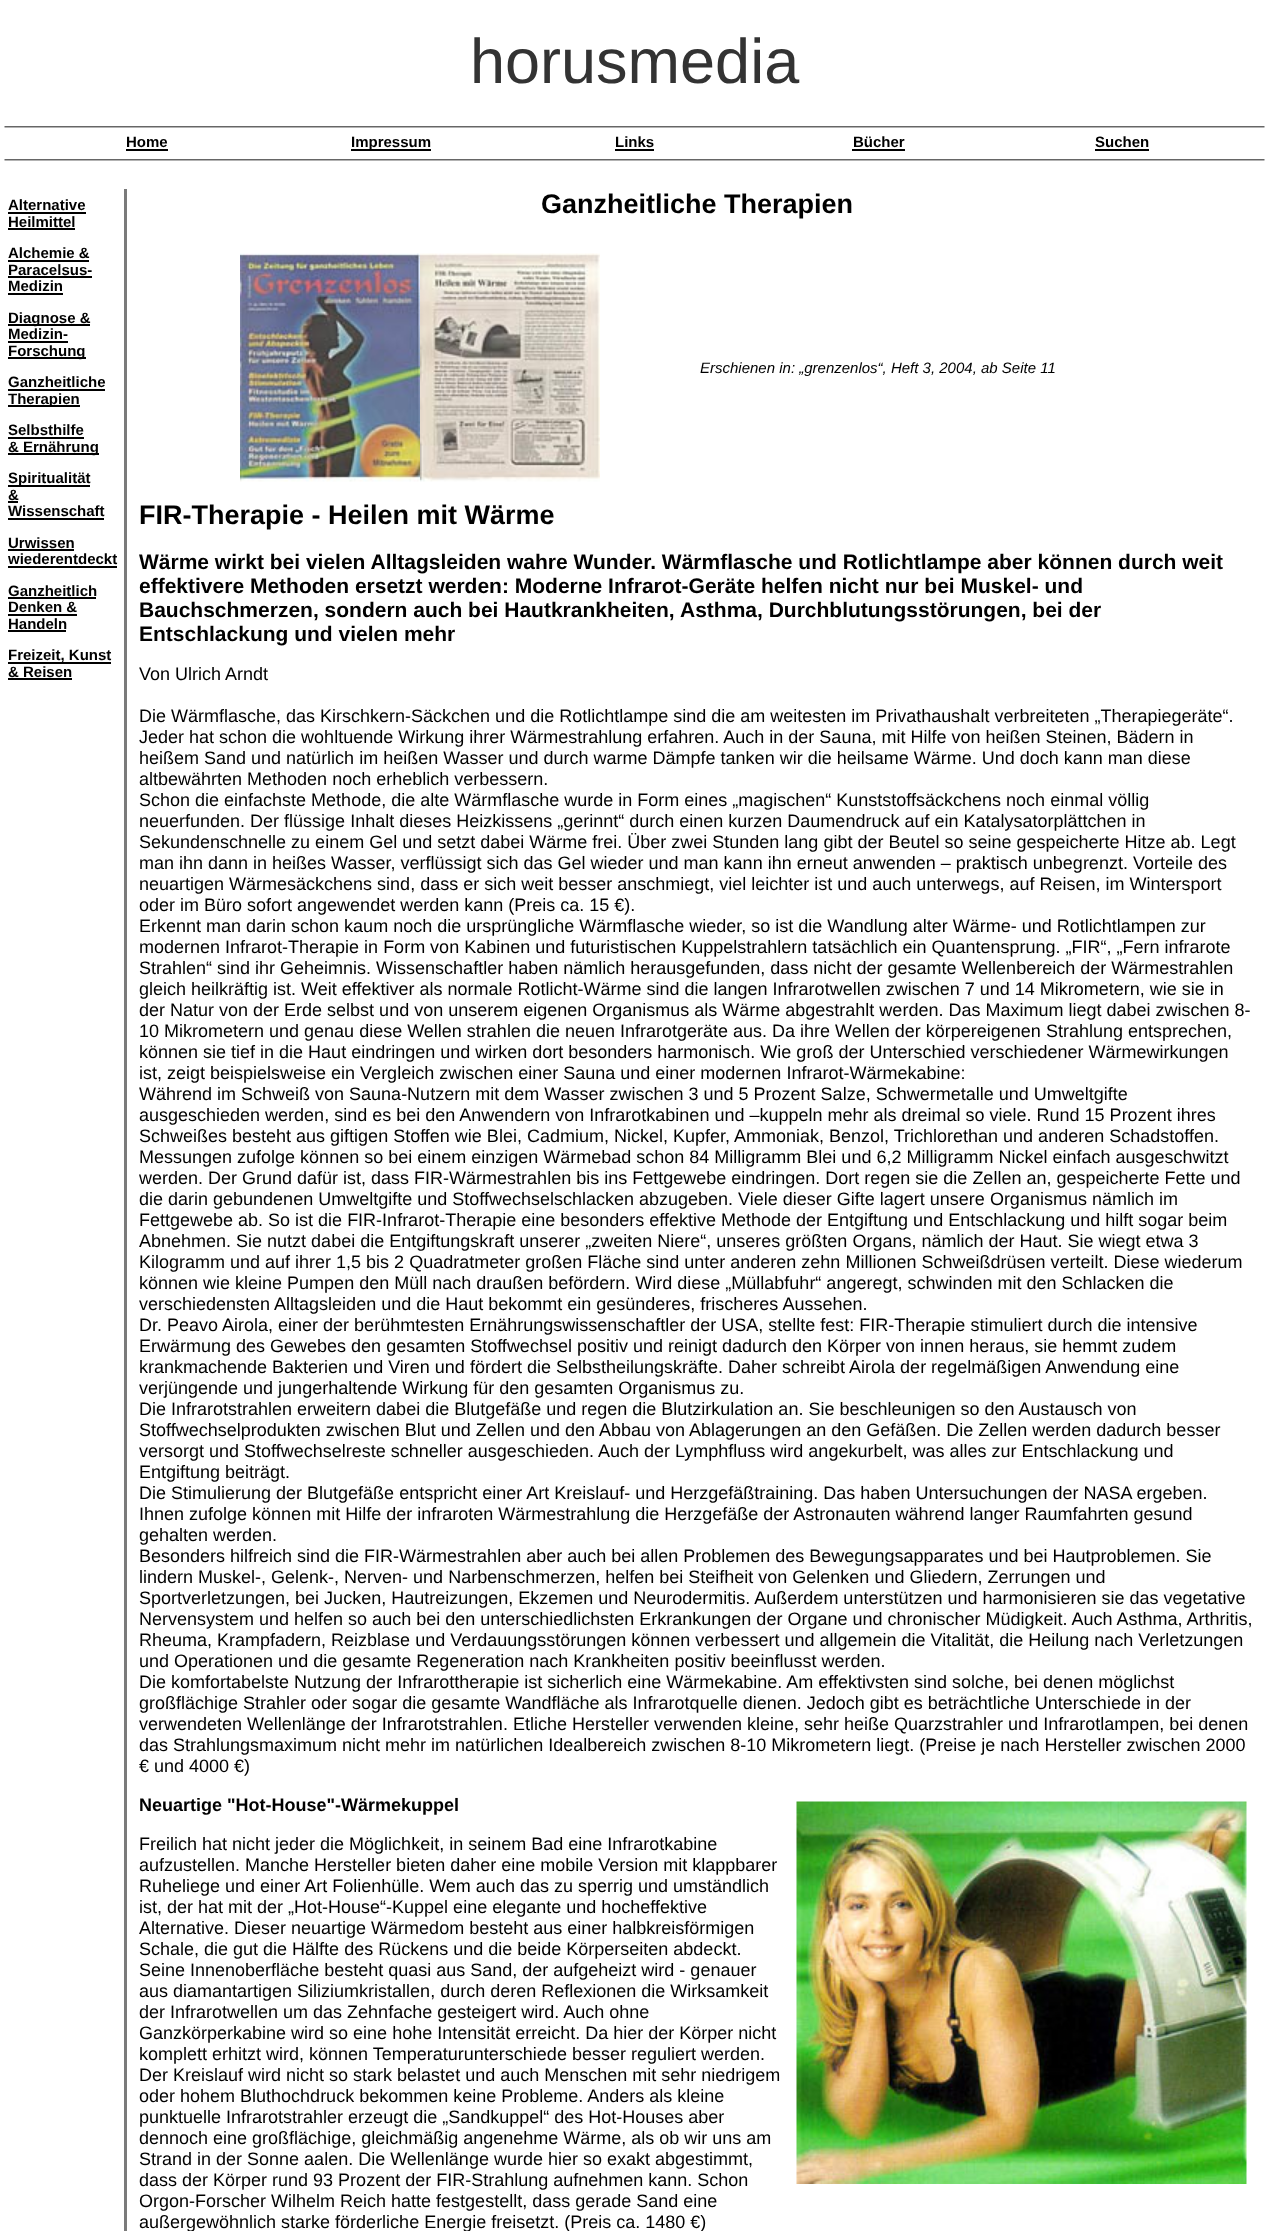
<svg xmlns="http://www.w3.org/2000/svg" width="1269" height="2231">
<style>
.a{font:63px Liberation Sans;fill:#333}
.b{font:bold 15px Liberation Sans;fill:#000}
.c{font:bold 27px Liberation Sans;fill:#000}
.d{font:italic 15px Liberation Sans;fill:#000}
.e{font:bold 21px Liberation Sans;fill:#000}
.f{font:18px Liberation Sans;fill:#000}
.g{font:bold 18px Liberation Sans;fill:#000}
</style>
<rect width="100%" height="100%" fill="#fff"/>
<image href="1.png" x="4" y="126" width="1261" height="2"/>
<path fill="#000" d="M126 149h42v2H126z"/>
<path fill="#000" d="M351 149h80v2H351z"/>
<path fill="#000" d="M615 149h39v2H615z"/>
<path fill="#000" d="M852 149h53v2H852z"/>
<path fill="#000" d="M1095 149h54v2H1095z"/>
<image href="1.png" x="4" y="159" width="1261" height="2"/>
<path fill="#000" d="M8 212h78v2H8z"/>
<path fill="#000" d="M8 228h67v2H8z"/>
<path fill="#000" d="M8 260h81v2H8z"/>
<path fill="#000" d="M8 276h84v2H8z"/>
<path fill="#000" d="M8 293h55v2H8z"/>
<path fill="#000" d="M8 324h82v2H8z"/>
<path fill="#000" d="M8 341h60v2H8z"/>
<path fill="#000" d="M8 357h78v2H8z"/>
<path fill="#000" d="M8 389h97v2H8z"/>
<path fill="#000" d="M8 405h72v2H8z"/>
<path fill="#000" d="M8 437h76v2H8z"/>
<path fill="#000" d="M8 453h91v2H8z"/>
<path fill="#000" d="M8 485h82v2H8z"/>
<path fill="#000" d="M8 501h10v2H8z"/>
<path fill="#000" d="M8 518h96v2H8z"/>
<path fill="#000" d="M8 549h66v2H8z"/>
<path fill="#000" d="M8 566h109v2H8z"/>
<path fill="#000" d="M8 597h88v2H8z"/>
<path fill="#000" d="M8 614h69v2H8z"/>
<path fill="#000" d="M8 630h58v2H8z"/>
<path fill="#000" d="M8 662h103v2H8z"/>
<path fill="#000" d="M8 678h64v2H8z"/>
<path fill="#7a7a7a" d="M124 189h3v2042H124z"/>
<image href="2.png" x="240" y="253" width="180" height="229"/>
<image href="3.png" x="420" y="253" width="180" height="229"/>
<image href="4.png" x="796" y="1801" width="451" height="383"/>
<text class="a" x="470" y="83">horusmedia</text>
<text class="b" x="126" y="147">Home</text>
<text class="b" x="351" y="147">Impressum</text>
<text class="b" x="615" y="147">Links</text>
<text class="b" x="853" y="147">Bücher</text>
<text class="b" x="1095" y="147">Suchen</text>
<text class="b" x="8" y="210">Alternative</text>
<text class="b" x="8" y="227">Heilmittel</text>
<text class="b" x="8" y="258">Alchemie &amp;</text>
<text class="b" x="8" y="275">Paracelsus-</text>
<text class="b" x="8" y="291">Medizin</text>
<text class="b" x="8" y="323">Diagnose &amp;</text>
<text class="b" x="8" y="339">Medizin-</text>
<text class="b" x="8" y="356">Forschung</text>
<text class="b" x="8" y="387">Ganzheitliche</text>
<text class="b" x="8" y="404">Therapien</text>
<text class="b" x="8" y="435">Selbsthilfe</text>
<text class="b" x="8" y="452">&amp; Ernährung</text>
<text class="b" x="8" y="483">Spiritualität</text>
<text class="b" x="8" y="500">&amp;</text>
<text class="b" x="8" y="516">Wissenschaft</text>
<text class="b" x="8" y="548">Urwissen</text>
<text class="b" x="8" y="564">wiederentdeckt</text>
<text class="b" x="8" y="596">Ganzheitlich</text>
<text class="b" x="8" y="612">Denken &amp;</text>
<text class="b" x="8" y="629">Handeln</text>
<text class="b" x="8" y="660">Freizeit, Kunst</text>
<text class="b" x="8" y="677">&amp; Reisen</text>
<text class="c" x="541" y="213">Ganzheitliche Therapien</text>
<text class="d" x="700" y="373">Erschienen in: „grenzenlos“, Heft 3, 2004, ab Seite 11</text>
<text class="c" x="139" y="524">FIR-Therapie - Heilen mit Wärme</text>
<text class="e" x="139" y="569">Wärme wirkt bei vielen Alltagsleiden wahre Wunder. Wärmflasche und Rotlichtlampe aber können durch weit</text>
<text class="e" x="139" y="593">effektivere Methoden ersetzt werden: Moderne Infrarot-Geräte helfen nicht nur bei Muskel- und</text>
<text class="e" x="139" y="617">Bauchschmerzen, sondern auch bei Hautkrankheiten,</text>
<text class="e" x="680" y="617">Asthma, Durchblutungsstörungen, bei der</text>
<text class="e" x="139" y="641">Entschlackung und vielen mehr</text>
<text class="f" x="139" y="680">Von Ulrich Arndt</text>
<text class="f" x="139" y="722">Die Wärmflasche, das Kirschkern-Säckchen und die Rotlichtlampe sind die am weitesten im Privathaushalt verbreiteten „Therapiegeräte“.</text>
<text class="f" x="139" y="743">Jeder hat schon die wohltuende Wirkung ihrer Wärmestrahlung erfahren. Auch in der Sauna, mit Hilfe von heißen Steinen, Bädern in</text>
<text class="f" x="139" y="764">heißem Sand und natürlich im heißen Wasser und durch warme Dämpfe tanken wir die heilsame Wärme. Und doch kann man diese</text>
<text class="f" x="139" y="785">altbewährten Methoden noch erheblich verbessern.</text>
<text class="f" x="139" y="806">Schon die einfachste Methode, die alte Wärmflasche wurde in Form eines „magischen“ Kunststoffsäckchens noch einmal völlig</text>
<text class="f" x="139" y="827">neuerfunden. Der flüssige Inhalt dieses Heizkissens „gerinnt“ durch einen kurzen Daumendruck auf ein Katalysatorplättchen in</text>
<text class="f" x="139" y="848">Sekundenschnelle zu einem Gel und setzt dabei Wärme frei. Über zwei Stunden lang gibt der Beutel so seine gespeicherte Hitze ab. Legt</text>
<text class="f" x="139" y="869">man ihn dann in heißes Wasser, verflüssigt sich das Gel wieder und man kann ihn erneut anwenden – praktisch unbegrenzt. Vorteile des</text>
<text class="f" x="139" y="890">neuartigen Wärmesäckchens sind, dass er sich weit besser anschmiegt, viel leichter ist und auch unterwegs, auf Reisen, im Wintersport</text>
<text class="f" x="139" y="911">oder im Büro sofort angewendet werden kann (Preis ca. 15 €).</text>
<text class="f" x="139" y="932">Erkennt man darin schon kaum noch die ursprüngliche Wärmflasche wieder, so ist die Wandlung alter Wärme- und Rotlichtlampen zur</text>
<text class="f" x="139" y="953">modernen Infrarot-Therapie in Form von Kabinen und futuristischen Kuppelstrahlern tatsächlich ein Quantensprung. „FIR“, „Fern infrarote</text>
<text class="f" x="139" y="974">Strahlen“ sind ihr Geheimnis. Wissenschaftler haben nämlich herausgefunden, dass nicht der gesamte Wellenbereich der Wärmestrahlen</text>
<text class="f" x="139" y="995">gleich heilkräftig ist. Weit effektiver als normale Rotlicht-Wärme sind die langen Infrarotwellen zwischen 7 und 14 Mikrometern, wie sie in</text>
<text class="f" x="139" y="1016">der Natur von der Erde selbst und von unserem eigenen Organismus als Wärme abgestrahlt werden. Das Maximum liegt dabei zwischen 8-</text>
<text class="f" x="139" y="1037">10 Mikrometern und genau diese Wellen strahlen die neuen Infrarotgeräte aus. Da ihre Wellen der körpereigenen Strahlung entsprechen,</text>
<text class="f" x="139" y="1058">können sie tief in die Haut eindringen und wirken dort besonders harmonisch. Wie groß der Unterschied verschiedener Wärmewirkungen</text>
<text class="f" x="139" y="1079">ist, zeigt beispielsweise ein Vergleich zwischen einer Sauna und einer modernen Infrarot-Wärmekabine:</text>
<text class="f" x="139" y="1100">Während im Schweiß von Sauna-Nutzern mit dem Wasser zwischen 3 und 5 Prozent Salze, Schwermetalle und Umweltgifte</text>
<text class="f" x="139" y="1121">ausgeschieden werden, sind es bei den Anwendern von Infrarotkabinen und –kuppeln mehr als dreimal so viele. Rund 15 Prozent ihres</text>
<text class="f" x="139" y="1142">Schweißes besteht aus giftigen Stoffen wie Blei, Cadmium, Nickel, Kupfer, Ammoniak, Benzol, Trichlorethan und anderen Schadstoffen.</text>
<text class="f" x="139" y="1163">Messungen zufolge können so bei einem einzigen Wärmebad schon 84 Milligramm Blei und 6,2 Milligramm Nickel einfach ausgeschwitzt</text>
<text class="f" x="139" y="1184">werden. Der Grund dafür ist, dass FIR-Wärmestrahlen bis ins Fettgewebe eindringen. Dort regen sie die Zellen an, gespeicherte Fette und</text>
<text class="f" x="139" y="1205">die darin gebundenen Umweltgifte und Stoffwechselschlacken abzugeben. Viele dieser Gifte lagert unsere Organismus nämlich im</text>
<text class="f" x="139" y="1226">Fettgewebe ab. So ist die FIR-Infrarot-Therapie eine besonders effektive Methode der Entgiftung und Entschlackung und hilft sogar beim</text>
<text class="f" x="139" y="1247">Abnehmen. Sie nutzt dabei die Entgiftungskraft unserer „zweiten Niere“, unseres größten Organs, nämlich der Haut. Sie wiegt etwa 3</text>
<text class="f" x="139" y="1268">Kilogramm und auf ihrer 1,5 bis 2 Quadratmeter großen Fläche sind unter anderen zehn Millionen Schweißdrüsen verteilt. Diese wiederum</text>
<text class="f" x="139" y="1289">können wie kleine Pumpen den Müll nach draußen befördern. Wird diese „Müllabfuhr“ angeregt, schwinden mit den Schlacken die</text>
<text class="f" x="139" y="1310">verschiedensten Alltagsleiden und die Haut bekommt ein gesünderes, frischeres Aussehen.</text>
<text class="f" x="139" y="1331">Dr. Peavo Airola, einer der berühmtesten Ernährungswissenschaftler der USA, stellte fest: FIR-Therapie stimuliert durch die intensive</text>
<text class="f" x="139" y="1352">Erwärmung des Gewebes den gesamten Stoffwechsel positiv und reinigt dadurch den Körper von innen heraus, sie hemmt zudem</text>
<text class="f" x="139" y="1373">krankmachende Bakterien und Viren und fördert die Selbstheilungskräfte. Daher schreibt Airola der regelmäßigen Anwendung eine</text>
<text class="f" x="139" y="1394">verjüngende und jungerhaltende Wirkung für den gesamten Organismus zu.</text>
<text class="f" x="139" y="1415">Die Infrarotstrahlen erweitern dabei die Blutgefäße und regen die Blutzirkulation an. Sie beschleunigen so den Austausch von</text>
<text class="f" x="139" y="1436">Stoffwechselprodukten zwischen Blut und Zellen und den Abbau von Ablagerungen an den Gefäßen. Die Zellen werden dadurch besser</text>
<text class="f" x="139" y="1457">versorgt und Stoffwechselreste schneller ausgeschieden. Auch der Lymphfluss wird angekurbelt, was alles zur Entschlackung und</text>
<text class="f" x="139" y="1478">Entgiftung beiträgt.</text>
<text class="f" x="139" y="1499">Die Stimulierung der Blutgefäße entspricht einer Art Kreislauf- und Herzgefäßtraining. Das haben Untersuchungen der NASA ergeben.</text>
<text class="f" x="139" y="1520">Ihnen zufolge können mit Hilfe der infraroten Wärmestrahlung die Herzgefäße der Astronauten während langer Raumfahrten gesund</text>
<text class="f" x="139" y="1541">gehalten werden.</text>
<text class="f" x="139" y="1562">Besonders hilfreich sind die FIR-Wärmestrahlen aber auch bei allen Problemen des Bewegungsapparates und bei Hautproblemen. Sie</text>
<text class="f" x="139" y="1583">lindern Muskel-, Gelenk-, Nerven- und Narbenschmerzen, helfen bei Steifheit von Gelenken und Gliedern, Zerrungen und</text>
<text class="f" x="139" y="1604">Sportverletzungen, bei Jucken, Hautreizungen, Ekzemen und Neurodermitis. Außerdem unterstützen und harmonisieren sie das vegetative</text>
<text class="f" x="139" y="1625">Nervensystem und helfen so auch bei den unterschiedlichsten Erkrankungen der Organe und chronischer Müdigkeit. Auch Asthma, Arthritis,</text>
<text class="f" x="139" y="1646">Rheuma, Krampfadern, Reizblase und Verdauungsstörungen können verbessert und allgemein die Vitalität, die Heilung nach Verletzungen</text>
<text class="f" x="139" y="1667">und Operationen und die gesamte Regeneration nach Krankheiten positiv beeinflusst werden.</text>
<text class="f" x="139" y="1688">Die komfortabelste Nutzung der Infrarottherapie ist sicherlich eine Wärmekabine. Am effektivsten sind solche, bei denen möglichst</text>
<text class="f" x="139" y="1709">großflächige Strahler oder sogar die gesamte Wandfläche als Infrarotquelle dienen. Jedoch gibt es beträchtliche Unterschiede in der</text>
<text class="f" x="139" y="1730">verwendeten Wellenlänge der Infrarotstrahlen. Etliche Hersteller verwenden kleine, sehr heiße Quarzstrahler und Infrarotlampen, bei denen</text>
<text class="f" x="139" y="1751">das Strahlungsmaximum nicht mehr im natürlichen Idealbereich zwischen 8-10 Mikrometern liegt. (Preise je nach Hersteller zwischen 2000</text>
<text class="f" x="139" y="1772">€ und 4000 €)</text>
<text class="g" x="139" y="1811">Neuartige "Hot-House"-Wärmekuppel</text>
<text class="f" x="139" y="1850">Freilich hat nicht jeder die Möglichkeit, in seinem Bad eine Infrarotkabine</text>
<text class="f" x="139" y="1871">aufzustellen. Manche Hersteller bieten daher eine mobile Version mit klappbarer</text>
<text class="f" x="139" y="1892">Ruheliege und einer Art Folienhülle. Wem auch das zu sperrig und umständlich</text>
<text class="f" x="139" y="1913">ist, der hat mit der „Hot-House“-Kuppel eine elegante und hocheffektive</text>
<text class="f" x="139" y="1934">Alternative. Dieser neuartige Wärmedom besteht aus einer halbkreisförmigen</text>
<text class="f" x="139" y="1955">Schale, die gut die Hälfte des Rückens und die beide Körperseiten abdeckt.</text>
<text class="f" x="139" y="1976">Seine Innenoberfläche besteht quasi aus Sand, der aufgeheizt wird - genauer</text>
<text class="f" x="139" y="1997">aus diamantartigen Siliziumkristallen, durch deren Reflexionen die Wirksamkeit</text>
<text class="f" x="139" y="2018">der Infrarotwellen um das Zehnfache gesteigert wird. Auch ohne</text>
<text class="f" x="139" y="2039">Ganzkörperkabine wird so eine hohe Intensität erreicht. Da hier der Körper nicht</text>
<text class="f" x="139" y="2060">komplett erhitzt wird, können Temperaturunterschiede besser reguliert werden.</text>
<text class="f" x="139" y="2081">Der Kreislauf wird nicht so stark belastet und auch Menschen mit sehr niedrigem</text>
<text class="f" x="139" y="2102">oder hohem Bluthochdruck bekommen keine Probleme. Anders als kleine</text>
<text class="f" x="139" y="2123">punktuelle Infrarotstrahler erzeugt die „Sandkuppel“ des Hot-Houses aber</text>
<text class="f" x="139" y="2144">dennoch eine großflächige, gleichmäßig angenehme Wärme, als ob wir uns am</text>
<text class="f" x="139" y="2165">Strand in der Sonne aalen. Die Wellenlänge wurde hier so exakt abgestimmt,</text>
<text class="f" x="139" y="2186">dass der Körper rund 93 Prozent der FIR-Strahlung aufnehmen kann. Schon</text>
<text class="f" x="139" y="2207">Orgon-Forscher Wilhelm Reich hatte festgestellt, dass gerade Sand eine</text>
<text class="f" x="139" y="2228">außergewöhnlich starke förderliche Energie freisetzt. (Preis ca. 1480 €)</text>
</svg>
